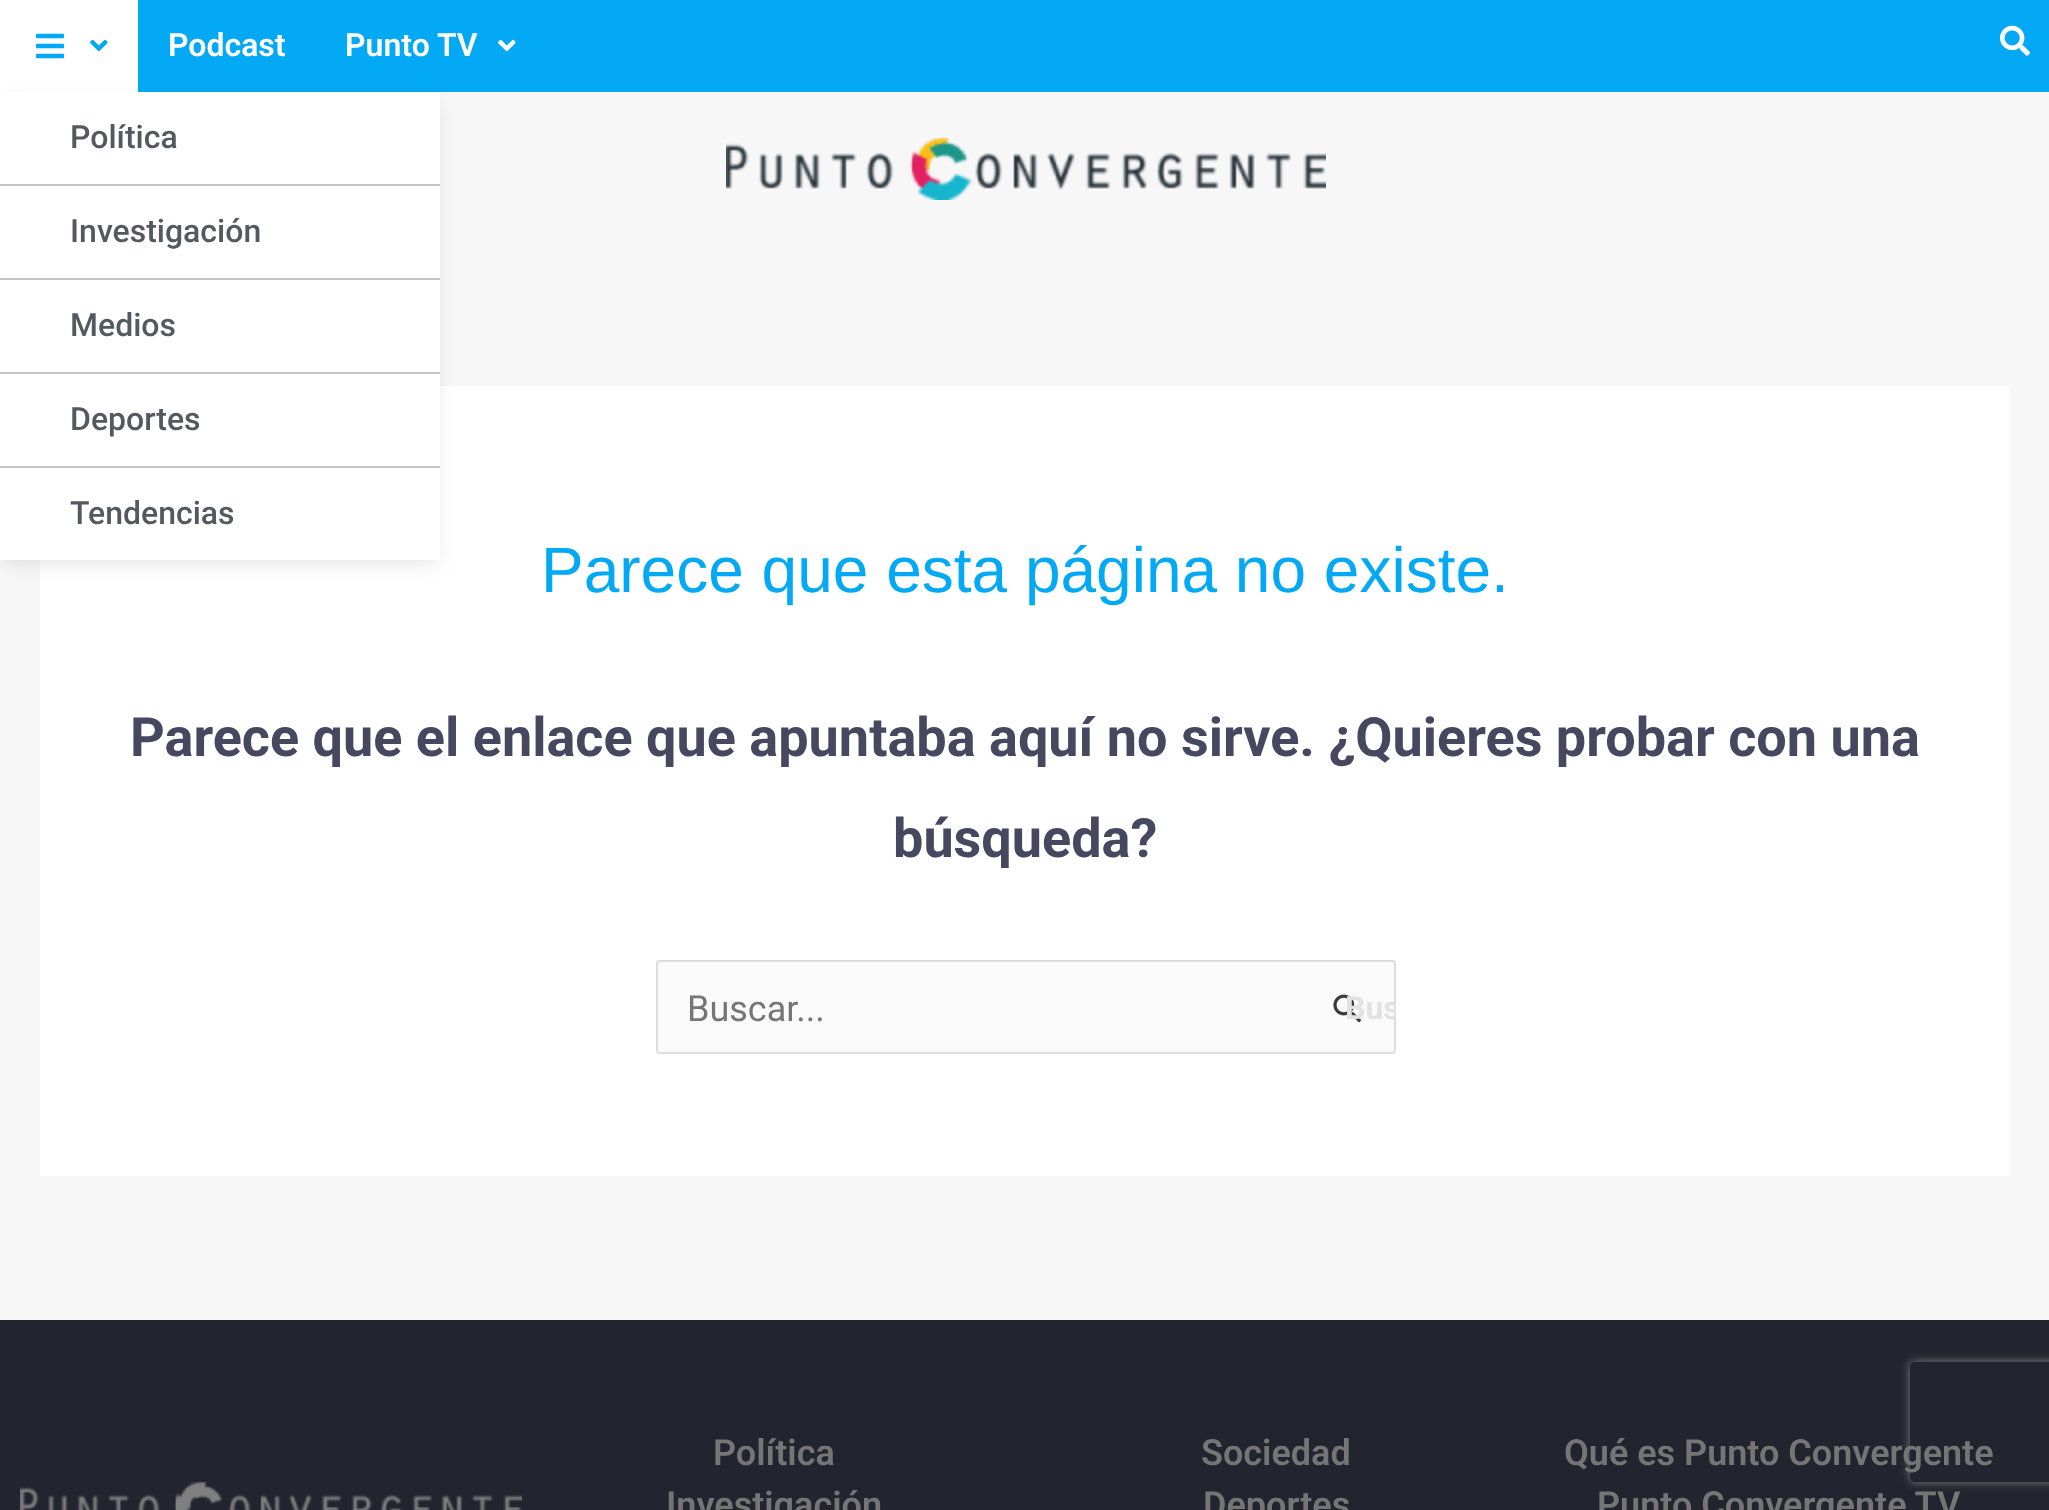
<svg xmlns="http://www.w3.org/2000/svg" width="2049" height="1510">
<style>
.a{font:600 32px Roboto;fill:#fff}
.b{font:500 32px Roboto;fill:#54595f}
.c{font:64px Liberation Sans;fill:#03a9f4}
.d{font:bold 54px Roboto;fill:#45485f}
.e{font:36px Roboto;fill:#757575}
.f{font:bold 32px Roboto;fill:#e2e2e2}
.g{font:600 36px Roboto;fill:#757575}
</style>
<defs>
<clipPath id="clip1"><path d="M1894 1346h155v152h-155zm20 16h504c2 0 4 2 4 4v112c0 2-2 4-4 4h-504c-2 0-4-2-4-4v-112c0-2 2-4 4-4z" clip-rule="evenodd"/></clipPath>
<clipPath id="clip2"><rect x="1306" y="960" width="90" height="98" rx="4"/></clipPath>
</defs>
<rect width="100%" height="100%" fill="#f7f7f8"/>
<path fill="#03a9f4" d="M138 0h1911v92H138z"/>
<image href="1.png" x="498" y="39" width="18" height="13"/>
<path fill="#fff" d="M0 0h138v92H0z"/>
<image href="2.png" x="36" y="33" width="28" height="26"/>
<image href="3.png" x="90" y="39" width="18" height="13"/>
<path fill="#fff" d="M40 386h1970v790H40z"/>
<path fill="#0000001a" filter="blur(10px)" d="M4 104h432v460H4z"/>
<path fill="#fff" d="M0 92h440v468H0z"/>
<path fill="#c4c4c4" d="M0 184h440v2H0z"/>
<path fill="#c4c4c4" d="M0 278h440v2H0z"/>
<path fill="#c4c4c4" d="M0 372h440v2H0z"/>
<path fill="#c4c4c4" d="M0 466h440v2H0z"/>
<image href="4.png" x="2000" y="25" width="30" height="31"/>
<image href="5.png" x="726" y="138" width="600" height="62"/>
<rect fill="#fafafa" stroke="#ddd" stroke-width="2" x="657" y="961" width="738" height="92" rx="3"/>
<image href="6.png" x="1333" y="994" width="29" height="29"/>
<path fill="#22242f" d="M0 1320h2049v190H0z"/>
<image href="7.png" x="20" y="1482" width="502" height="28"/>
<g clip-path="url(#clip1)">
<rect fill="#808080" filter="blur(5px)" x="1910" y="1362" width="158" height="120" rx="4"/>
</g>
<text class="a" x="168" y="56">Podcast</text>
<text class="a" x="345" y="56">Punto TV</text>
<text class="b" x="70" y="148">Política</text>
<text class="b" x="70" y="242">Investigación</text>
<text class="b" x="70" y="336">Medios</text>
<text class="b" x="70" y="430">Deportes</text>
<text class="b" x="70" y="524">Tendencias</text>
<text class="c" x="541" y="592">Parece que esta página no existe.</text>
<text class="d" x="130" y="756">Parece que el enlace que apuntaba aquí no sirve. ¿Quieres probar con una</text>
<text class="d" x="893" y="857">búsqueda?</text>
<text class="e" x="687" y="1021">Buscar...</text>
<g clip-path="url(#clip2)">
<text class="f" x="1345" y="1019">Bus</text>
</g>
<text class="g" x="713" y="1465">Política</text>
<text class="g" x="666" y="1517">Investigación</text>
<text class="g" x="1201" y="1465">Sociedad</text>
<text class="g" x="1203" y="1517">Deportes</text>
<text class="g" x="1564" y="1465">Qué es Punto Convergente</text>
<text class="g" x="1597" y="1517">Punto Convergente TV</text>
</svg>
